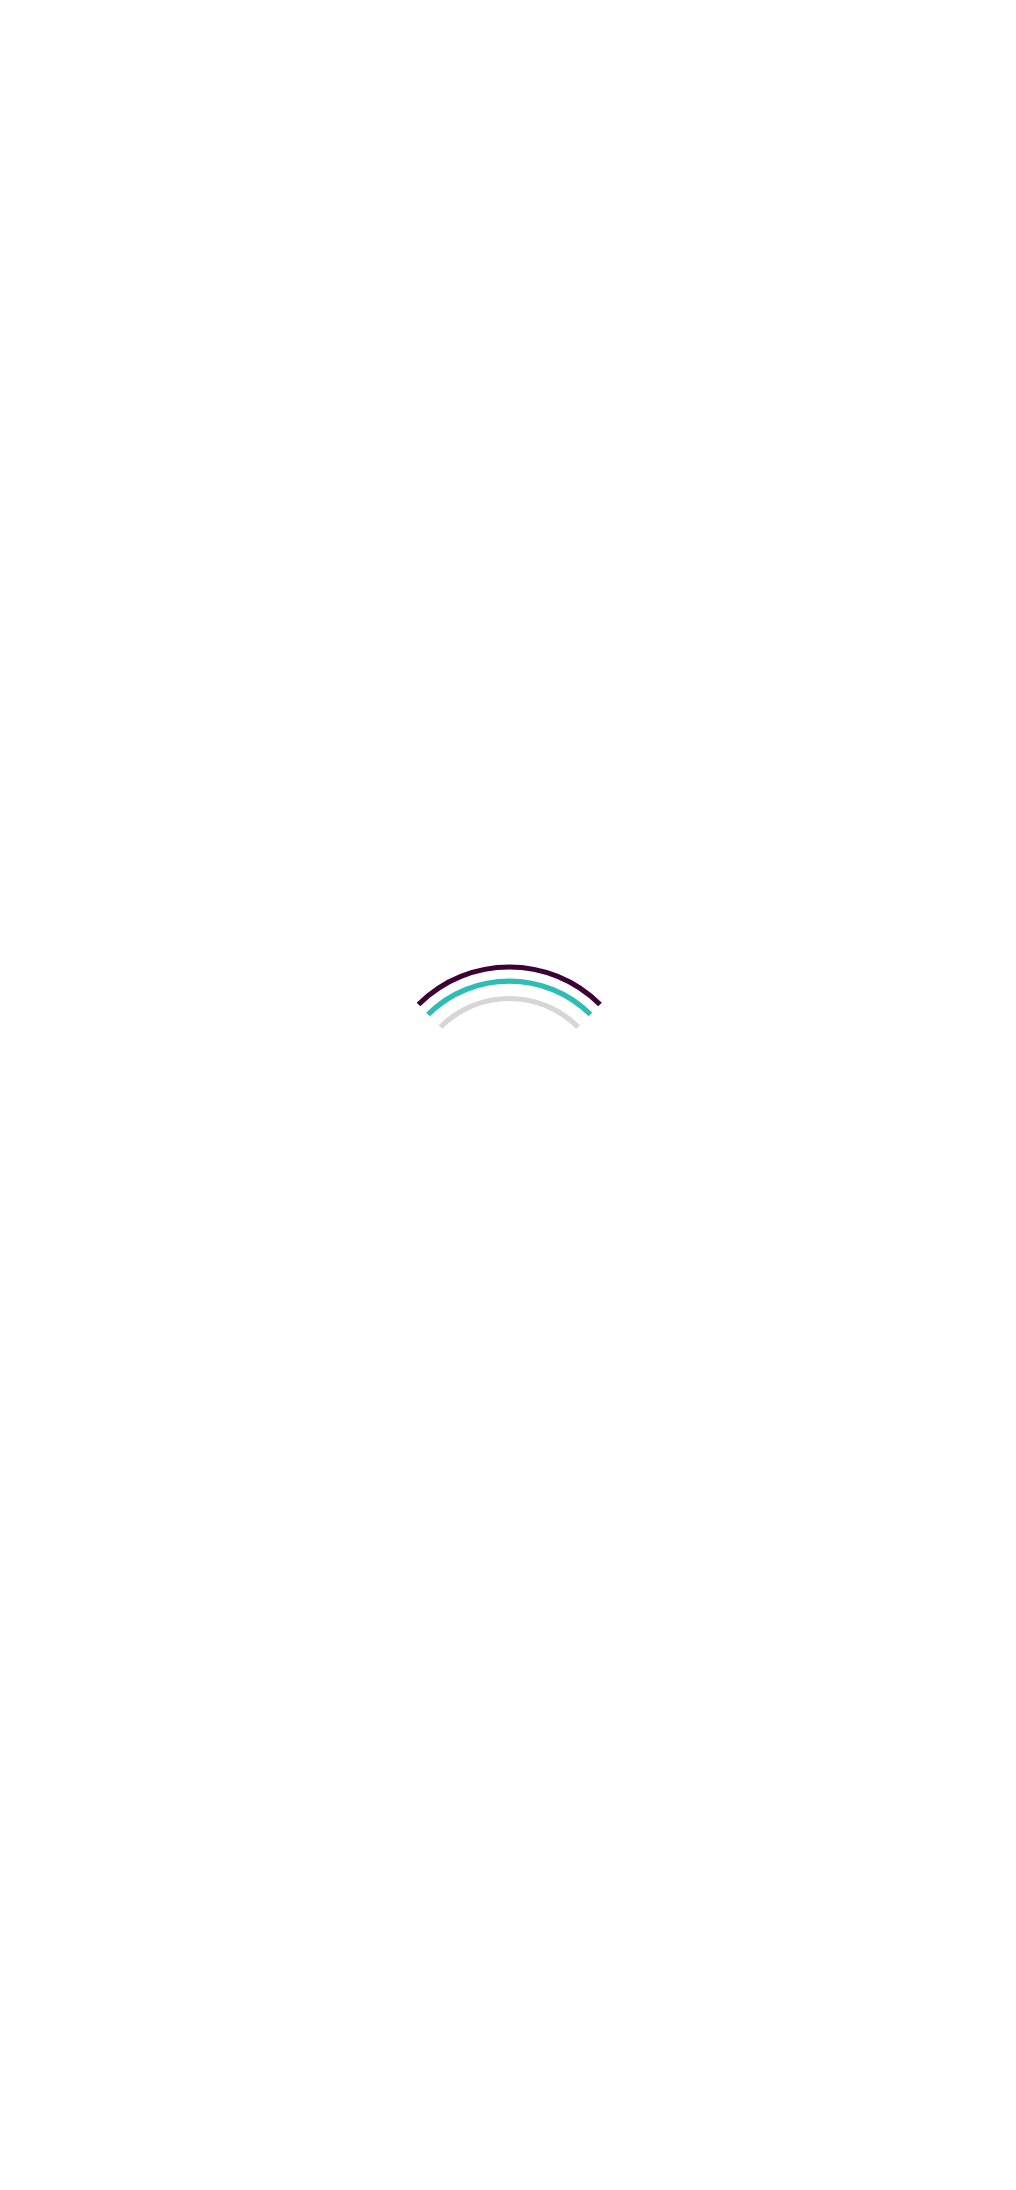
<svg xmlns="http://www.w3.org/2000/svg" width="1016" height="2190">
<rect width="100%" height="100%" fill="#fff"/>
<path fill="none" stroke="#3d0235" stroke-width="5.2" d="M418.5 1004.5c50-50 131.5-50 181.5 0"/>
<path fill="none" stroke="#2dbdb6" stroke-width="5.2" d="M428 1014.5c44.5-44.5 118-44.5 162.5 0"/>
<path fill="none" stroke="#d6d6d6" stroke-width="5.2" d="M440.5 1027c38-38 99.5-38 137.5 0"/>
</svg>
